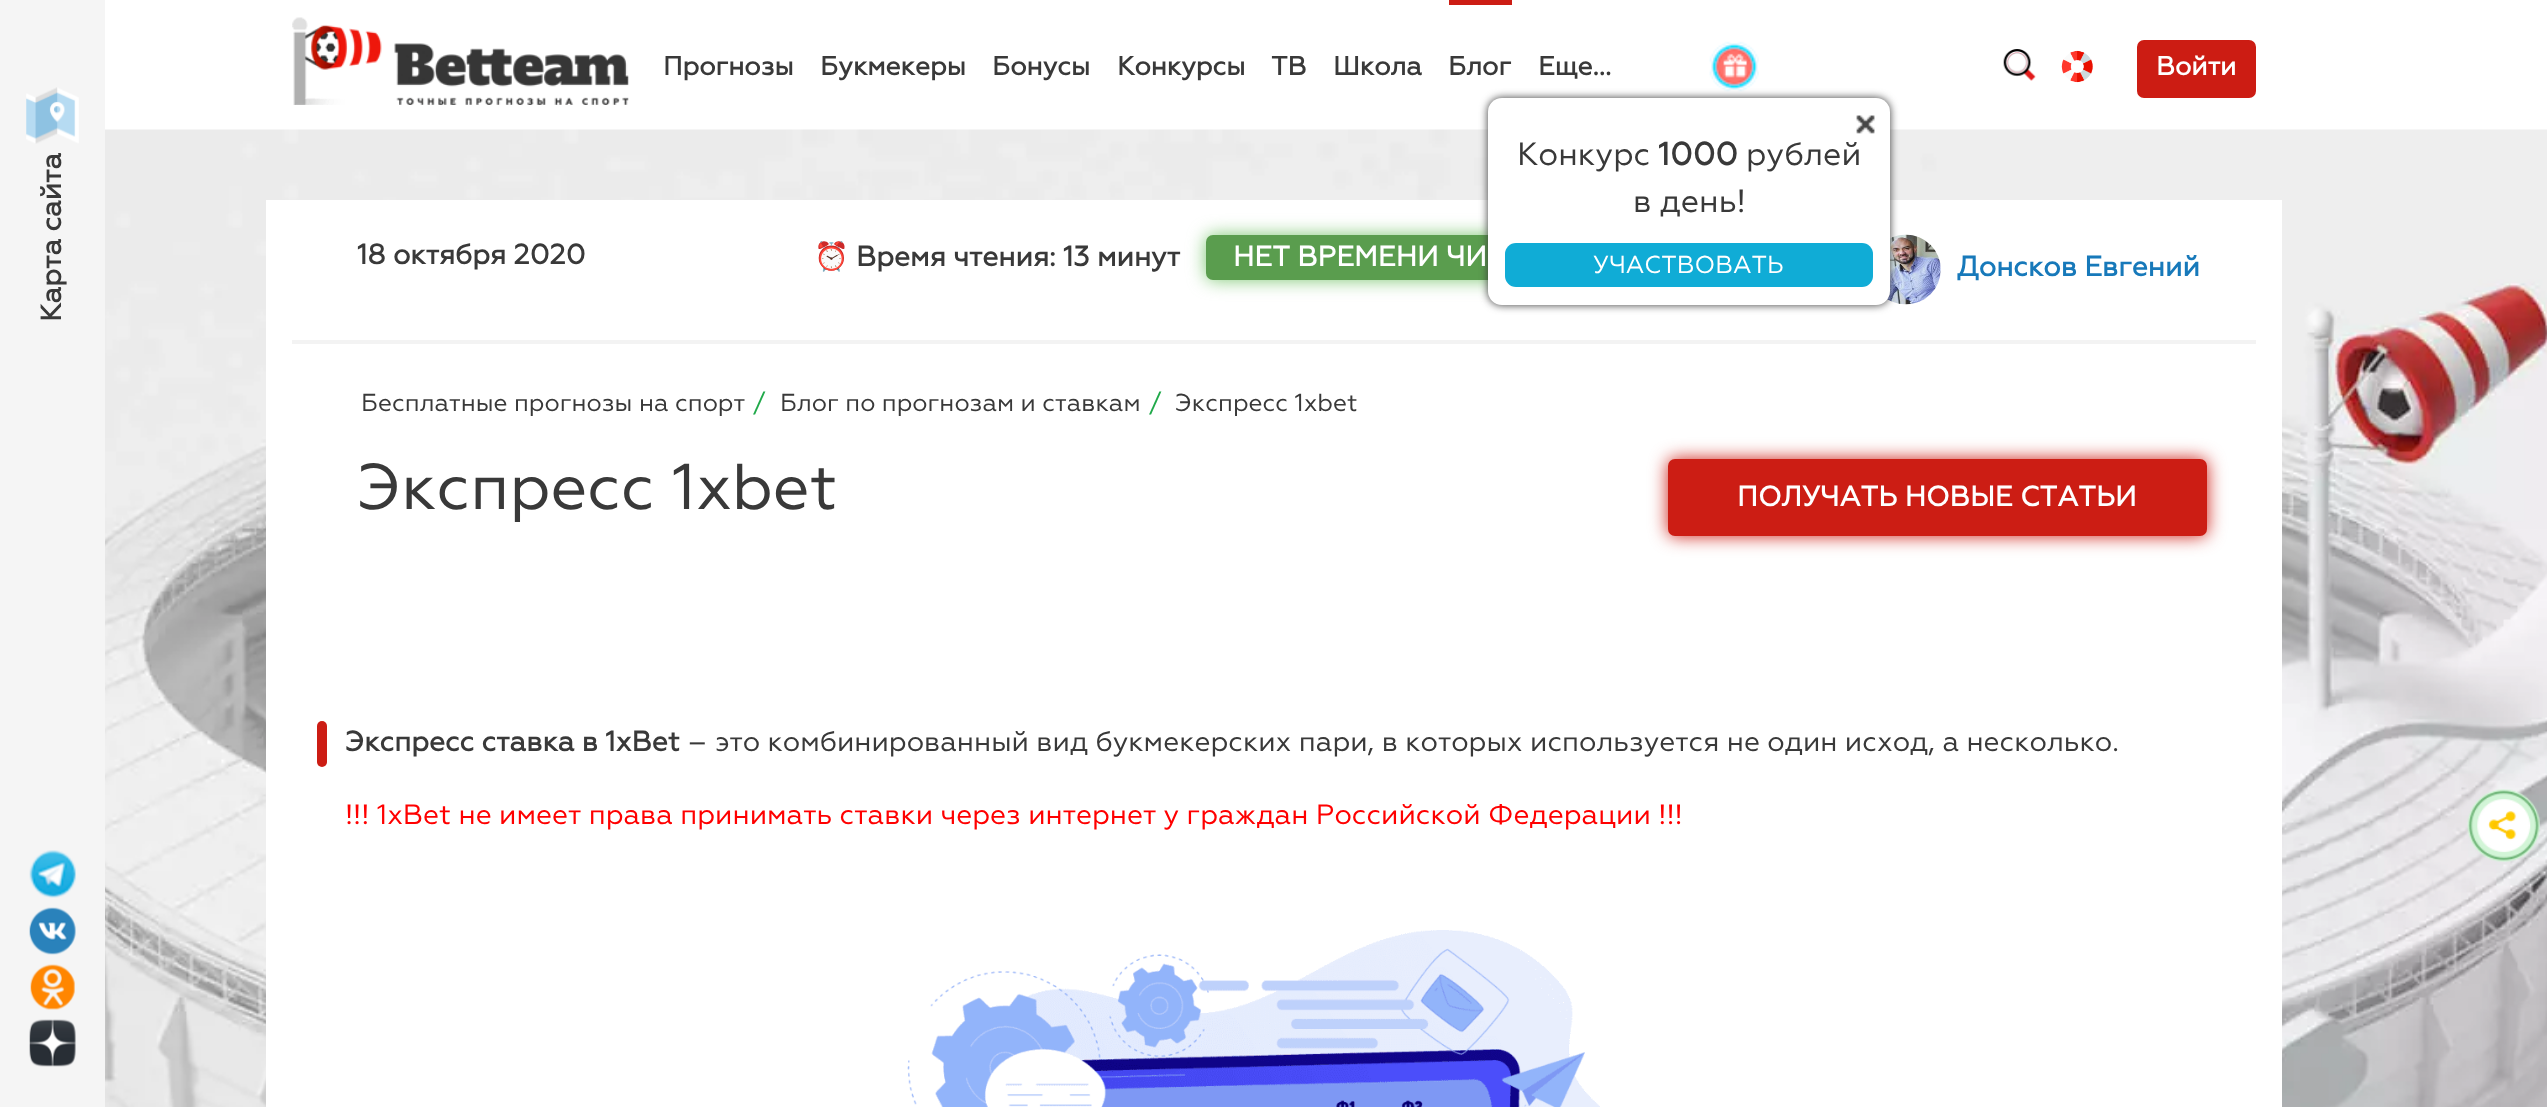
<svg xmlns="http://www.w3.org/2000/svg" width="2547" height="1107">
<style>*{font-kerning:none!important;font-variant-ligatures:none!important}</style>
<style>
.a{font:bold 28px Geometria;fill:#393939}
.b{font:bold 26.25px Geometria;fill:#393939}
.c{font:bold 26.25px Geometria;fill:#fff}
.d{font:32px Geometria;fill:#393939}
.e{font:bold 32px Geometria;fill:#393939}
.f{font:24.5px Geometria;fill:#fff}
.g{font:bold 28px Noto Color Emoji;fill:#393939}
.h{font:bold 28px Geometria;fill:#fff}
.i{font:bold 28px Geometria;fill:#1779ba}
.j{font:24.5px Geometria;fill:#393939}
.k{font:24.5px Geometria;fill:#20a94a}
.l{font:64.5px Geometria;fill:#393939}
.m{font:28px Geometria;fill:#393939}
.n{font:28px Geometria;fill:#f00}
</style>
<rect width="100%" height="100%" fill="#fff"/>
<path fill="#f5f5f5" d="M0 0h105v1107H0z"/>
<image href="1.png" x="26" y="87" width="53" height="57"/>
<image href="2.png" x="29" y="850" width="47" height="48"/>
<image href="3.png" x="29" y="907" width="47" height="48"/>
<image href="4.png" x="30" y="964" width="45" height="46"/>
<image href="5.png" x="29" y="1019" width="47" height="48"/>
<image href="6.png" x="292" y="17" width="337" height="88"/>
<path fill="#cc1d14" d="M1449 0h63v5H1449z"/>
<image href="7.png" x="1709" y="41" width="50" height="51"/>
<image href="8.png" x="2003" y="49" width="33" height="32"/>
<image href="9.png" x="2061" y="50" width="32" height="33"/>
<rect fill="#cc1c13" stroke="#cc1c13" stroke-width="2" x="2138" y="41" width="117" height="56" rx="6"/>
<image href="11.png" x="105" y="129" width="2442" height="978"/>
<path fill="#fff" d="M266 200h2016v907H266z"/>
<rect fill="#7cc771" filter="blur(9px)" x="1206" y="235" width="385" height="45" rx="7"/>
<rect fill="#5a9d4e" x="1206" y="235" width="385" height="45" rx="7"/>
<image href="12.png" x="1887" y="234" width="54" height="71"/>
<rect fill="#393939" filter="blur(4.5px)" x="1488" y="98" width="402" height="207" rx="14"/>
<rect fill="#fff" x="1488" y="98" width="402" height="207" rx="14"/>
<image href="10.png" x="1856" y="115" width="19" height="19"/>
<rect fill="#10acd6" x="1505" y="243" width="368" height="44" rx="11"/>
<path fill="#f3f3f3" d="M292 340h1964v4H292z"/>
<rect fill="#cc1d14" filter="blur(9px)" x="1668" y="459" width="539" height="77" rx="7"/>
<rect fill="#cc1d14" x="1668" y="459" width="539" height="77" rx="7"/>
<rect fill="#cc1d14" x="317" y="721" width="10" height="46" rx="5"/>
<image href="13.png" x="907" y="930" width="693" height="177"/>
<image href="14.png" x="2467" y="789" width="73" height="73"/>
<text class="a" x="61" y="322" transform="rotate(-90 61 322)">Карта сайта</text>
<text class="b" x="663" y="75">Прогнозы</text>
<text class="b" x="820" y="75">Букмекеры</text>
<text class="b" x="992" y="75">Бонусы</text>
<text class="b" x="1117" y="75">Конкурсы</text>
<text class="b" x="1271" y="75">ТВ</text>
<text class="b" x="1333" y="75">Школа</text>
<text class="b" x="1448" y="75">Блог</text>
<text class="b" x="1538" y="75">Еще...</text>
<text class="c" x="2156" y="75">Войти</text>
<text class="d" x="1517" y="165">Конкурс</text>
<text class="e" x="1658" y="165">1000</text>
<text class="d" x="1746" y="165">рублей</text>
<text class="d" x="1633" y="212">в день!</text>
<text class="f" x="1593" y="273">УЧАСТВОВАТЬ</text>
<text class="a" x="357" y="264">18 октября 2020</text>
<text class="g" x="814" y="266">⏰</text>
<text class="a" x="856" y="266">Время чтения: 13 минут</text>
<text class="h" x="1233" y="266">НЕТ ВРЕМЕНИ ЧИ</text>
<text class="i" x="1957" y="276">Донсков Евгений</text>
<text class="j" x="361" y="411">Бесплатные прогнозы на спорт</text>
<text class="k" x="753" y="411">/</text>
<text class="j" x="780" y="411">Блог по прогнозам и ставкам</text>
<text class="k" x="1149" y="411">/</text>
<text class="j" x="1175" y="411">Экспресс 1xbet</text>
<text class="l" x="357" y="509">Экспресс 1xbet</text>
<text class="h" x="1737" y="506">ПОЛУЧАТЬ НОВЫЕ СТАТЬИ</text>
<text class="a" x="345" y="751">Экспресс ставка в 1xBet</text>
<text class="m" x="687" y="751">– это комбинированный вид букмекерских пари, в которых используется не один исход, а несколько.</text>
<text class="n" x="345" y="824">!!! 1xBet не имеет права принимать ставки через интернет у граждан Российской Федерации !!!</text>
</svg>
